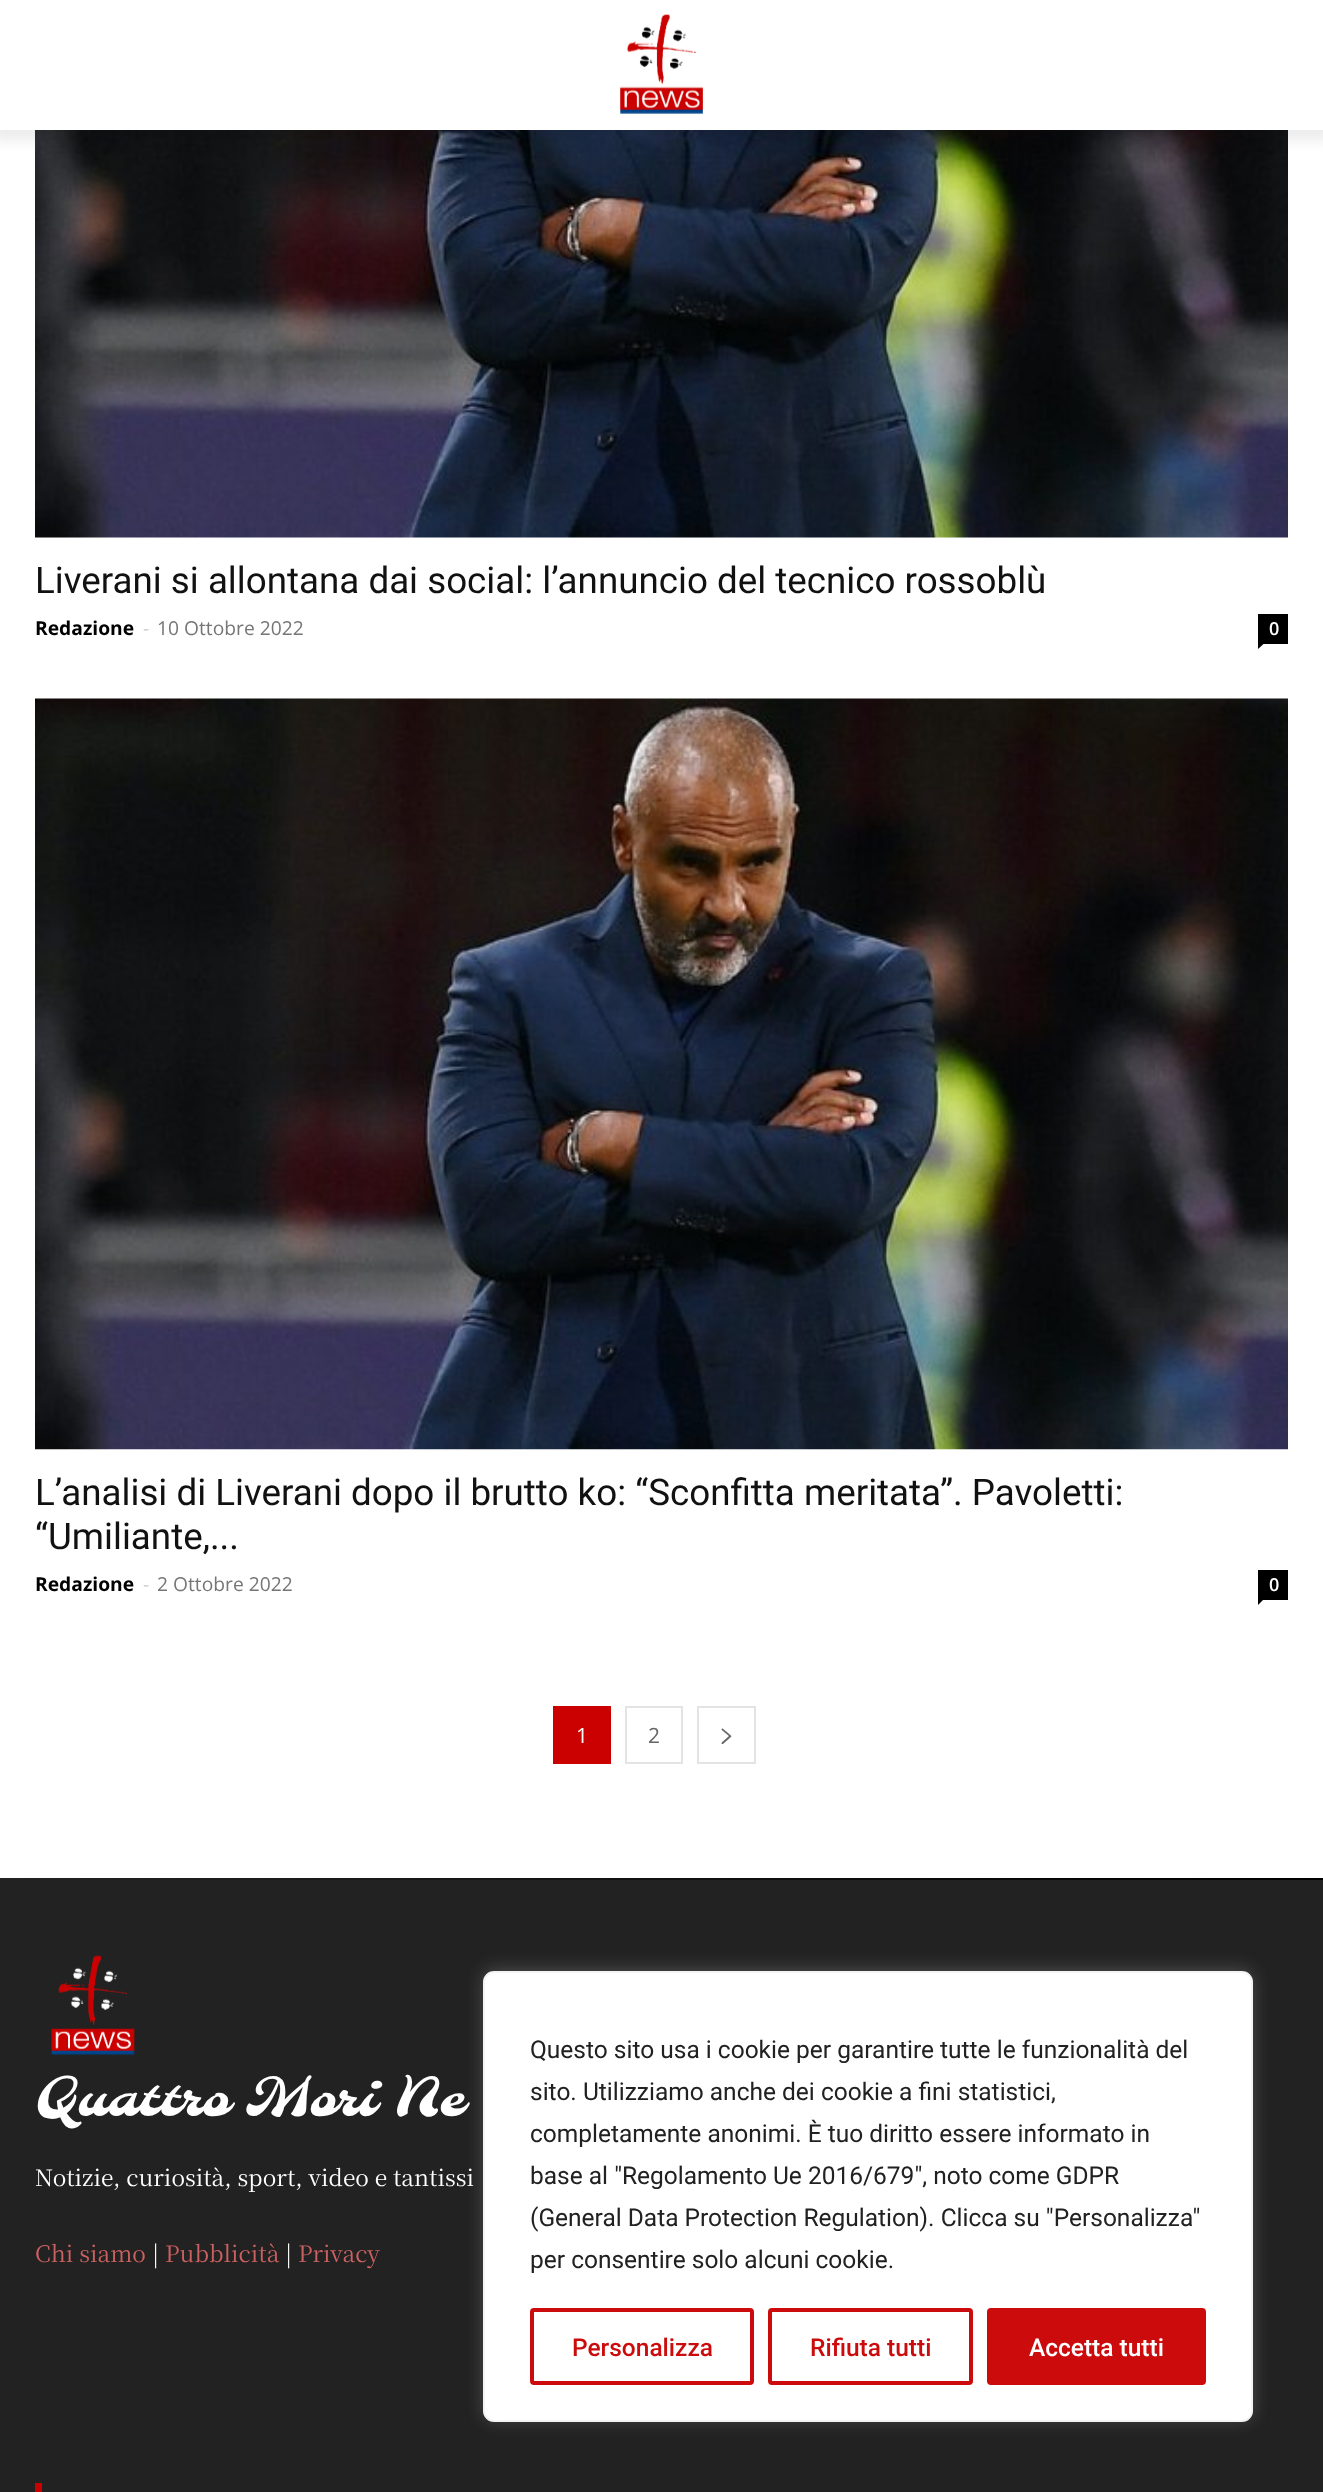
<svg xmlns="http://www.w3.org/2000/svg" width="1323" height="2492">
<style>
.a{font:36.75px Roboto;fill:#111}
.b{font:bold 19.25px Open Sans;fill:#000}
.c{font:19.25px Open Sans;fill:#ccc}
.d{font:19.25px Open Sans;fill:#767676}
.e{font:600 18px Open Sans;fill:#fff}
.f{font:21px Open Sans;fill:#fff}
.g{font:21px Open Sans;fill:#666}
.h{font:52.5px Molle;fill:#fff}
.i{font:22.75px Noto Serif TC;fill:#fff}
.j{font:22.75px Noto Serif TC;fill:#cc6161}
.k{font:24.5px Roboto;fill:#212121}
.l{font:500 24.5px Roboto;fill:#cc0c0c}
.m{font:500 24.5px Roboto;fill:#fff}
</style>
<defs>
<clipPath id="clip1"><path d="M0 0h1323v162h-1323zm-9 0h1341v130h-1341z" clip-rule="evenodd"/></clipPath>
<linearGradient id="g1" gradientUnits="userSpaceOnUse" x1="1323" y1="2325" x2="0" y2="2325"><stop offset="0" stop-color="#000"/><stop offset="1" stop-color="#222"/></linearGradient>
</defs>
<rect width="100%" height="100%" fill="#fff"/>
<image href="1.png" x="620" y="14" width="83" height="100"/>
<image href="2.png" x="35" y="130" width="1253" height="408"/>
<g clip-path="url(#clip1)">
<path fill="#00000014" filter="blur(7px)" d="M-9 11h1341v129H-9z"/>
</g>
<path fill="#000" d="M1258 614h30v30H1258z"/>
<path fill="#000" d="M1258 644h5.5l-5.5 5z"/>
<image href="3.png" x="35" y="698" width="1253" height="752"/>
<path fill="#000" d="M1258 1570h30v30H1258z"/>
<path fill="#000" d="M1258 1599.5h5.5l-5.5 5.5z"/>
<path fill="#cb0000" d="M553 1706h58v58H553z"/>
<path fill="none" stroke="#e3e3e3" stroke-width="2" d="M626 1707h56v56H626z"/>
<path fill="none" stroke="#e3e3e3" stroke-width="2" d="M698 1707h57v56H698z"/>
<image href="4.png" x="721" y="1728" width="11" height="17"/>
<path fill="url(#g1)" d="M0 1878h1323v2H0z"/>
<path fill="#222" d="M0 1880h1323v612H0z"/>
<image href="5.png" x="51" y="1955" width="84" height="100"/>
<path fill="#cb0000" d="M35 2483h7v9H35z"/>
<rect fill="#acabab4d" filter="blur(9px)" x="483" y="1969" width="770" height="451" rx="11"/>
<rect fill="#fff" stroke="#f4f4f4" stroke-width="2" x="484" y="1972" width="768" height="449" rx="10"/>
<rect fill="none" stroke="#cc0c0c" stroke-width="4" x="532" y="2310" width="220" height="73" rx="2"/>
<rect fill="none" stroke="#cc0c0c" stroke-width="4" x="770" y="2310" width="201" height="73" rx="2"/>
<rect fill="#cc0c0c" stroke="#cc0c0c" stroke-width="4" x="989" y="2310" width="215" height="73" rx="2"/>
<text class="a" x="35" y="593">Liverani si allontana dai social: l’annuncio del tecnico rossoblù</text>
<text class="b" x="35" y="635">Redazione</text>
<text class="c" x="143" y="635">-</text>
<text class="d" x="157" y="635">10 Ottobre 2022</text>
<text class="e" x="1269" y="635">0</text>
<text class="a" x="35" y="1505">L’analisi di Liverani dopo il brutto ko: “Sconfitta meritata”. Pavoletti:</text>
<text class="a" x="35" y="1549">“Umiliante,...</text>
<text class="b" x="35" y="1591">Redazione</text>
<text class="c" x="143" y="1591">-</text>
<text class="d" x="157" y="1591">2 Ottobre 2022</text>
<text class="e" x="1269" y="1591">0</text>
<text class="f" x="576" y="1743">1</text>
<text class="g" x="648" y="1743">2</text>
<text class="h" x="35" y="2116">Quattro Mori Ne</text>
<text class="i" x="35" y="2186">Notizie, curiosità, sport, video e tantissi</text>
<text class="j" x="35" y="2262">Chi siamo</text>
<text class="i" x="152" y="2262">|</text>
<text class="j" x="165" y="2262">Pubblicità</text>
<text class="i" x="285" y="2262">|</text>
<text class="j" x="298" y="2262">Privacy</text>
<text class="k" x="530" y="2058">Questo sito usa i cookie per garantire tutte le funzionalità del</text>
<text class="k" x="530" y="2100">sito. Utilizziamo anche dei cookie a fini statistici,</text>
<text class="k" x="530" y="2142">completamente anonimi. È tuo diritto essere informato in</text>
<text class="k" x="530" y="2184">base al "Regolamento Ue 2016/679", noto come GDPR</text>
<text class="k" x="530" y="2226">(General Data Protection Regulation). Clicca su "Personalizza"</text>
<text class="k" x="530" y="2268">per consentire solo alcuni cookie.</text>
<text class="l" x="572" y="2356">Personalizza</text>
<text class="l" x="810" y="2356">Rifiuta tutti</text>
<text class="m" x="1029" y="2356">Accetta tutti</text>
</svg>
